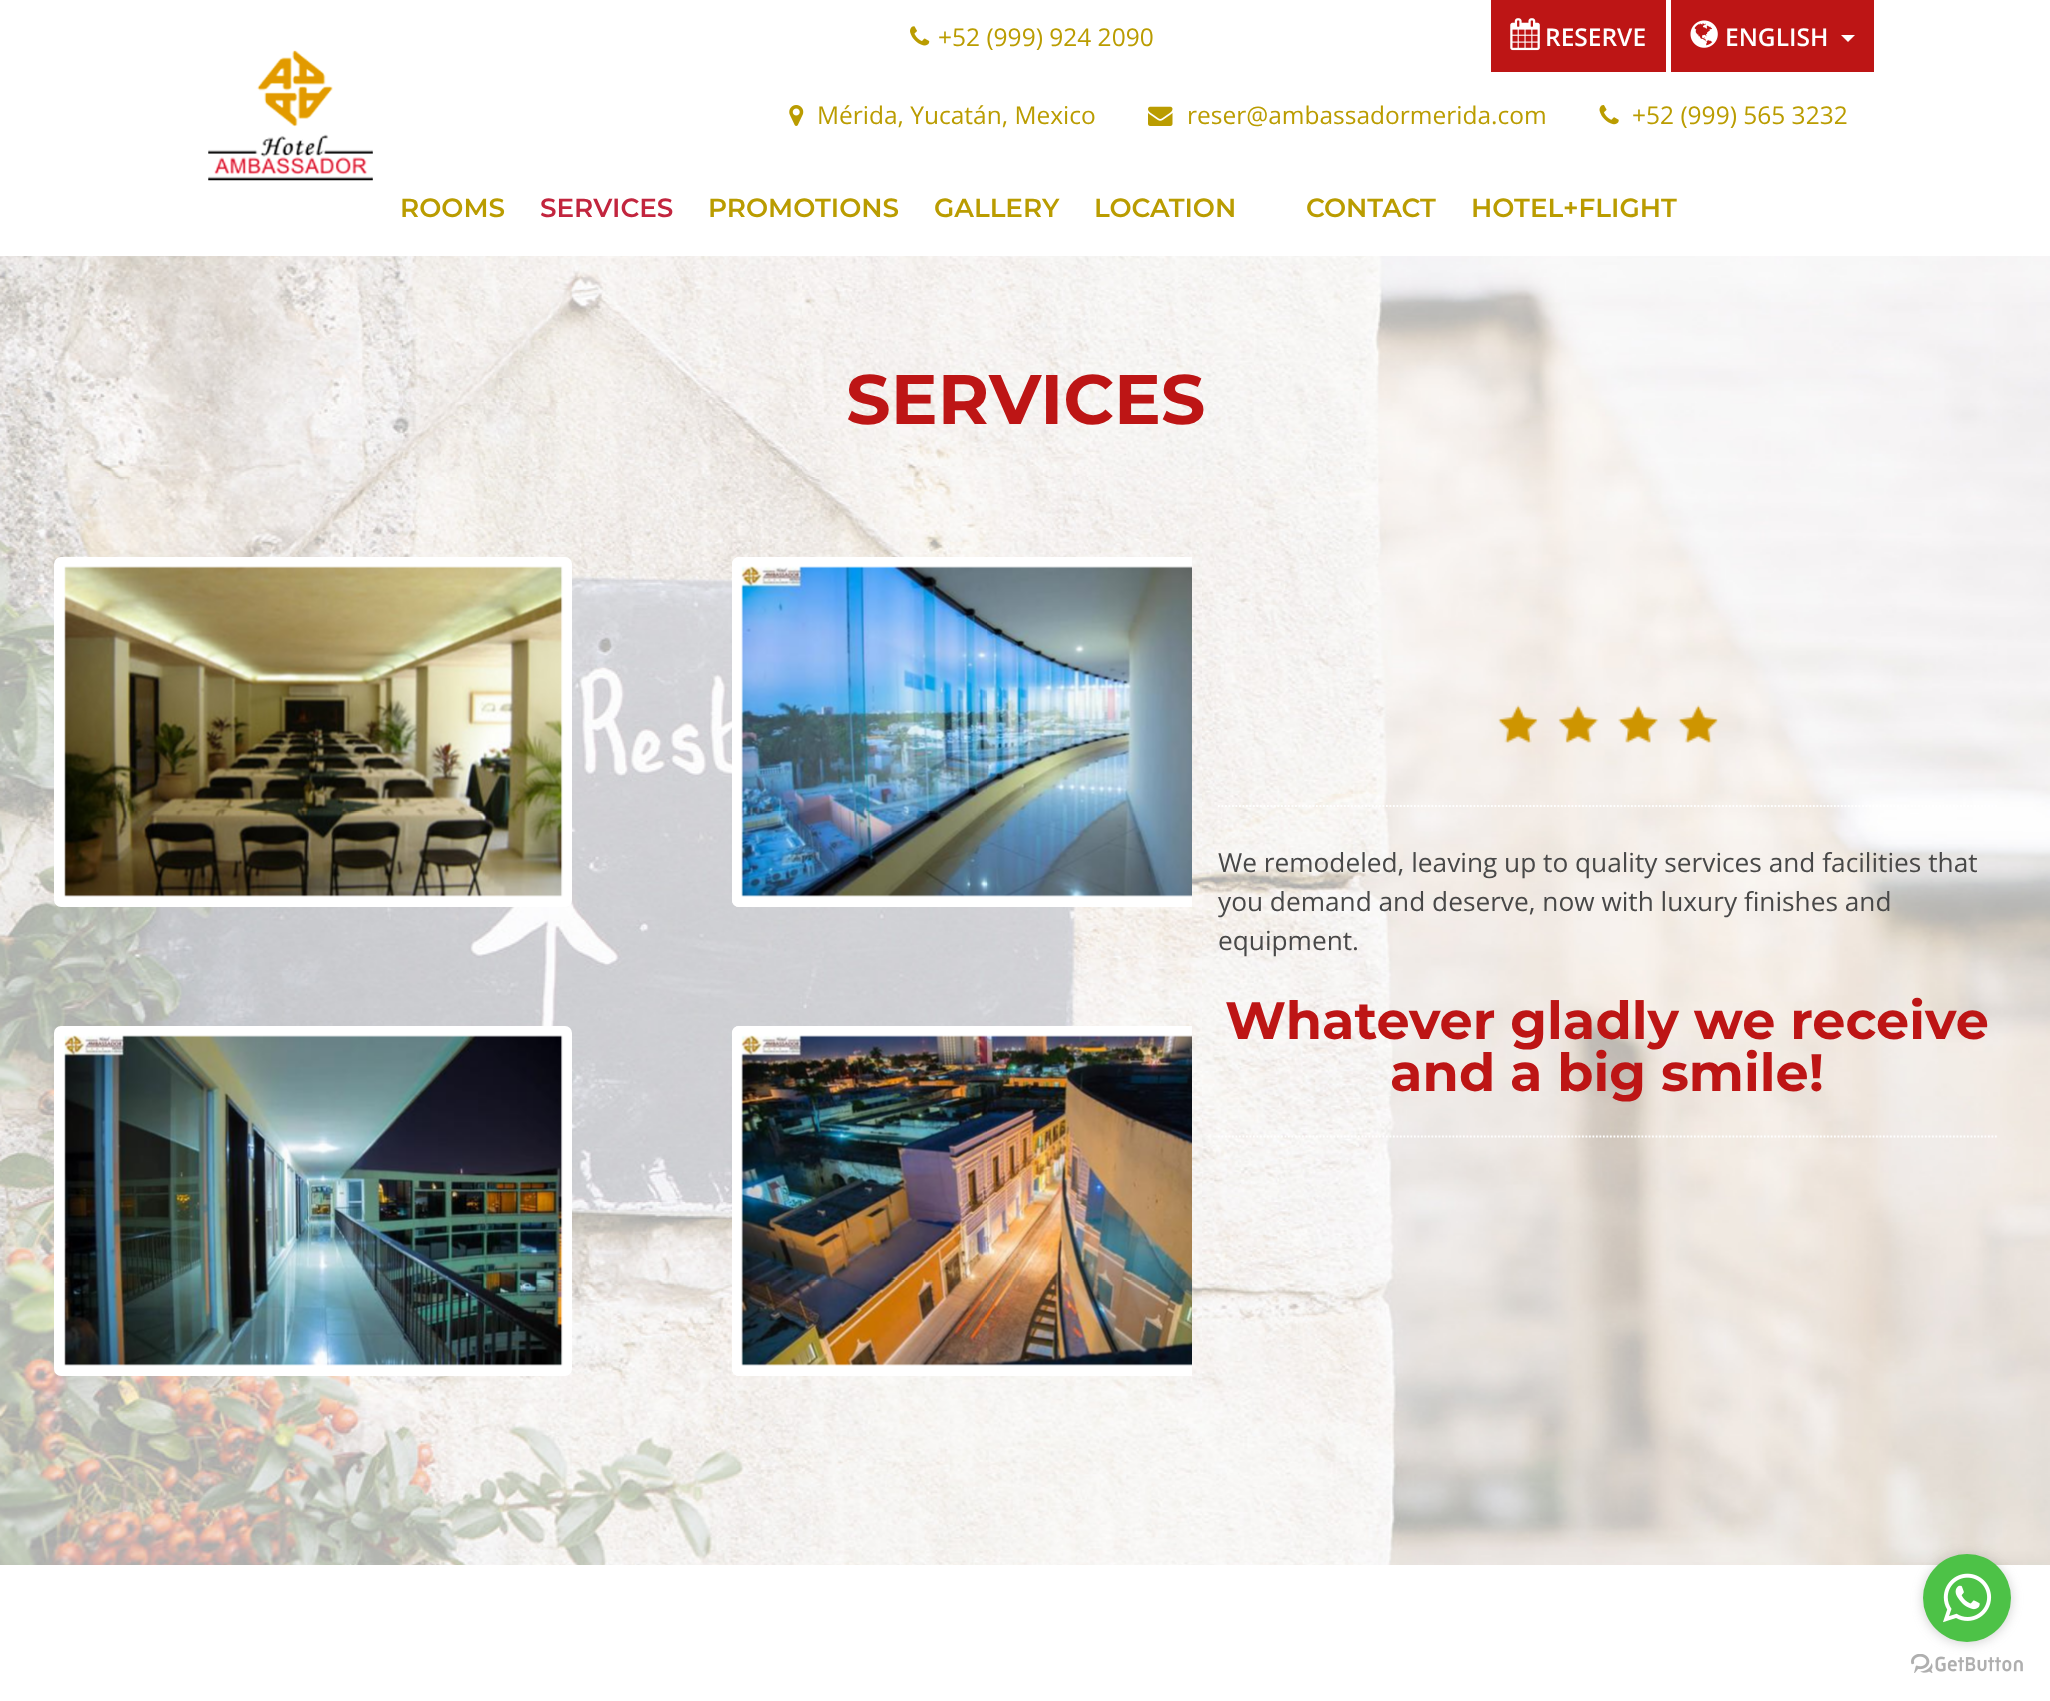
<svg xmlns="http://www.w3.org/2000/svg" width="2050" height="1701">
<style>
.a{font:24.5px Open Sans;fill:#ba9c00}
.b{font:600 24.5px Open Sans;fill:#fff}
.c{font:600 26.25px Montserrat;fill:#ba9c00}
.d{font:600 26.25px Montserrat;fill:#c2253e}
.e{font:bold 70px Montserrat;fill:#bd1515}
.f{font:26.25px Open Sans;fill:#484848}
.g{font:bold 52.5px Montserrat;fill:#bd1515}
</style>
<defs>
<clipPath id="clip1"><path d="M705 557h487v362H705z"/></clipPath>
<clipPath id="clip2"><path d="M705 1026h487v362H705z"/></clipPath>
</defs>
<rect width="100%" height="100%" fill="#fff"/>
<image href="1.png" x="910" y="26" width="20" height="20"/>
<path fill="#bd1515" d="M1491 0h175v72H1491z"/>
<image href="2.png" x="1510" y="18" width="30" height="33"/>
<path fill="#bd1515" d="M1671 0h203v72H1671z"/>
<image href="3.png" x="1690" y="20" width="28" height="28"/>
<path fill="#fff" d="M1841 35h14l-7 7z"/>
<image href="4.png" x="208" y="50" width="165" height="131"/>
<image href="5.png" x="789" y="105" width="15" height="21"/>
<image href="6.png" x="1148" y="106" width="25" height="20"/>
<image href="7.png" x="1599" y="105" width="20" height="20"/>
<image href="8.png" x="0" y="256" width="2050" height="221"/>
<image href="9.png" x="0" y="477" width="2050" height="1088"/>
<rect fill="#fff" stroke="#fff" stroke-width="2" x="55" y="558" width="516" height="348" rx="6"/>
<image href="10.png" x="64" y="566" width="499" height="331"/>
<path fill="#fff" d="M739 557h453v350h-453c-4 0-7-3-7-7v-336c0-4 3-7 7-7z"/>
<rect fill="#fff" stroke="#fff" stroke-width="2" x="55" y="1027" width="516" height="348" rx="6"/>
<image href="12.png" x="64" y="1035" width="499" height="331"/>
<path fill="#fff" d="M739 1026h453v350h-453c-4 0-7-3-7-7v-336c0-4 3-7 7-7z"/>
<image href="14.png" x="1498" y="705" width="220" height="38"/>
<path fill="none" stroke="#fff" stroke-width="1.8" stroke-dasharray="1.75 1.75" d="M1218 806h779"/>
<path fill="none" stroke="#fff" stroke-width="1.8" stroke-dasharray="1.75 1.75" d="M1218 1136.5h779"/>
<image href="16.png" x="1911" y="1654" width="112" height="19"/>
<rect fill="#88888866" filter="blur(6px)" x="1923" y="1556" width="88" height="87" rx="43.5"/>
<circle fill="#4dc247" cx="1967" cy="1598" r="44"/>
<image href="15.png" x="1943" y="1573" width="49" height="50"/>
<text class="a" x="938" y="46">+52 (999) 924 2090</text>
<text class="b" x="1545" y="46">RESERVE</text>
<text class="b" x="1725" y="46">ENGLISH</text>
<text class="a" x="817" y="124">Mérida, Yucatán, Mexico</text>
<text class="a" x="1187" y="124">reser@ambassadormerida.com</text>
<text class="a" x="1632" y="124">+52 (999) 565 3232</text>
<text class="c" x="400" y="217">ROOMS</text>
<text class="d" x="540" y="217">SERVICES</text>
<text class="c" x="708" y="217">PROMOTIONS</text>
<text class="c" x="934" y="217">GALLERY</text>
<text class="c" x="1094" y="217">LOCATION</text>
<text class="c" x="1306" y="217">CONTACT</text>
<text class="c" x="1471" y="217">HOTEL+FLIGHT</text>
<text class="e" x="846" y="424">SERVICES</text>
<text class="f" x="1218" y="872">We remodeled, leaving up to quality services and facilities that</text>
<text class="f" x="1218" y="911">you demand and deserve, now with luxury finishes and</text>
<g clip-path="url(#clip1)">
<rect fill="none" stroke="#fff" stroke-width="2" x="733" y="558" width="516" height="348" rx="6"/>
</g>
<image href="11.png" x="741" y="566" width="451" height="331"/>
<text class="f" x="1218" y="950">equipment.</text>
<text class="g" x="1225" y="1039">Whatever gladly we receive</text>
<g clip-path="url(#clip2)">
<rect fill="none" stroke="#fff" stroke-width="2" x="733" y="1027" width="516" height="348" rx="6"/>
</g>
<image href="13.png" x="741" y="1035" width="451" height="331"/>
<text class="g" x="1390" y="1091">and a big smile!</text>
</svg>
